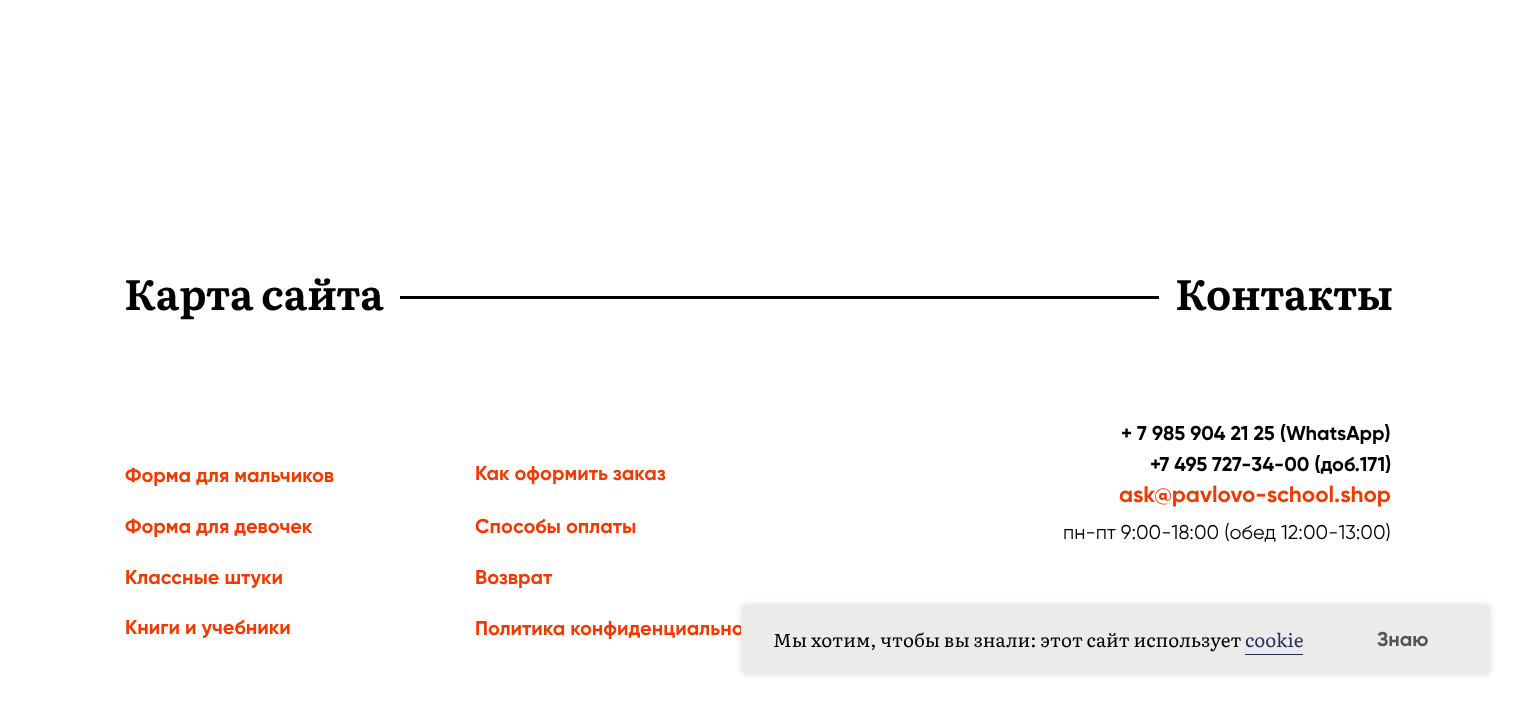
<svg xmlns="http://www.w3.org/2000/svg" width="1516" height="712">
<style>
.a{font:bold 42.5px Literata;fill:#000}
.b{font:bold 20px Gilroy;fill:#f23a00}
.c{font:bold 20px Gilroy;fill:#000}
.d{font:bold 22.5px Gilroy;fill:#f23a00}
.e{font:20px Gilroy;fill:#000}
.f{font:18.75px Literata;fill:#000}
.g{font:18.75px Literata;fill:#2c2e61}
.h{font:bold 20px Gilroy;fill:#555}
</style>
<rect width="100%" height="100%" fill="#fff"/>
<path fill="#000" d="M400 296h759v3H400z"/>
<rect fill="#0000001a" filter="blur(3px)" x="741" y="604" width="750" height="71" rx="6"/>
<text class="a" x="124" y="310">Карта сайта</text>
<text class="a" x="1175" y="310">Контакты</text>
<text class="b" x="125" y="482">Форма для мальчиков</text>
<text class="b" x="475" y="480">Как оформить заказ</text>
<text class="c" x="1121" y="440">+ 7 985 904 21 25 (WhatsApp)</text>
<text class="c" x="1150" y="471">+7 495 727-34-00 (доб.171)</text>
<text class="d" x="1119" y="502">ask@pavlovo-school.shop</text>
<text class="b" x="125" y="533">Форма для девочек</text>
<text class="b" x="475" y="533">Способы оплаты</text>
<text class="e" x="1063" y="539">пн-пт 9:00-18:00 (обед 12:00-13:00)</text>
<text class="b" x="125" y="584">Классные штуки</text>
<text class="b" x="475" y="584">Возврат</text>
<text class="b" x="125" y="634">Книги и учебники</text>
<text class="b" x="475" y="635">Политика конфиденциально</text>
<rect fill="#ebebeb" x="741" y="604" width="750" height="71" rx="6"/>
<text class="f" x="773" y="647">Мы хотим, чтобы вы знали: этот сайт использует</text>
<text class="g" x="1245" y="647">cookie</text>
<path fill="#2c2e61" d="M1245 654h58v1H1245z"/>
<text class="h" x="1377" y="646">Знаю</text>
</svg>
